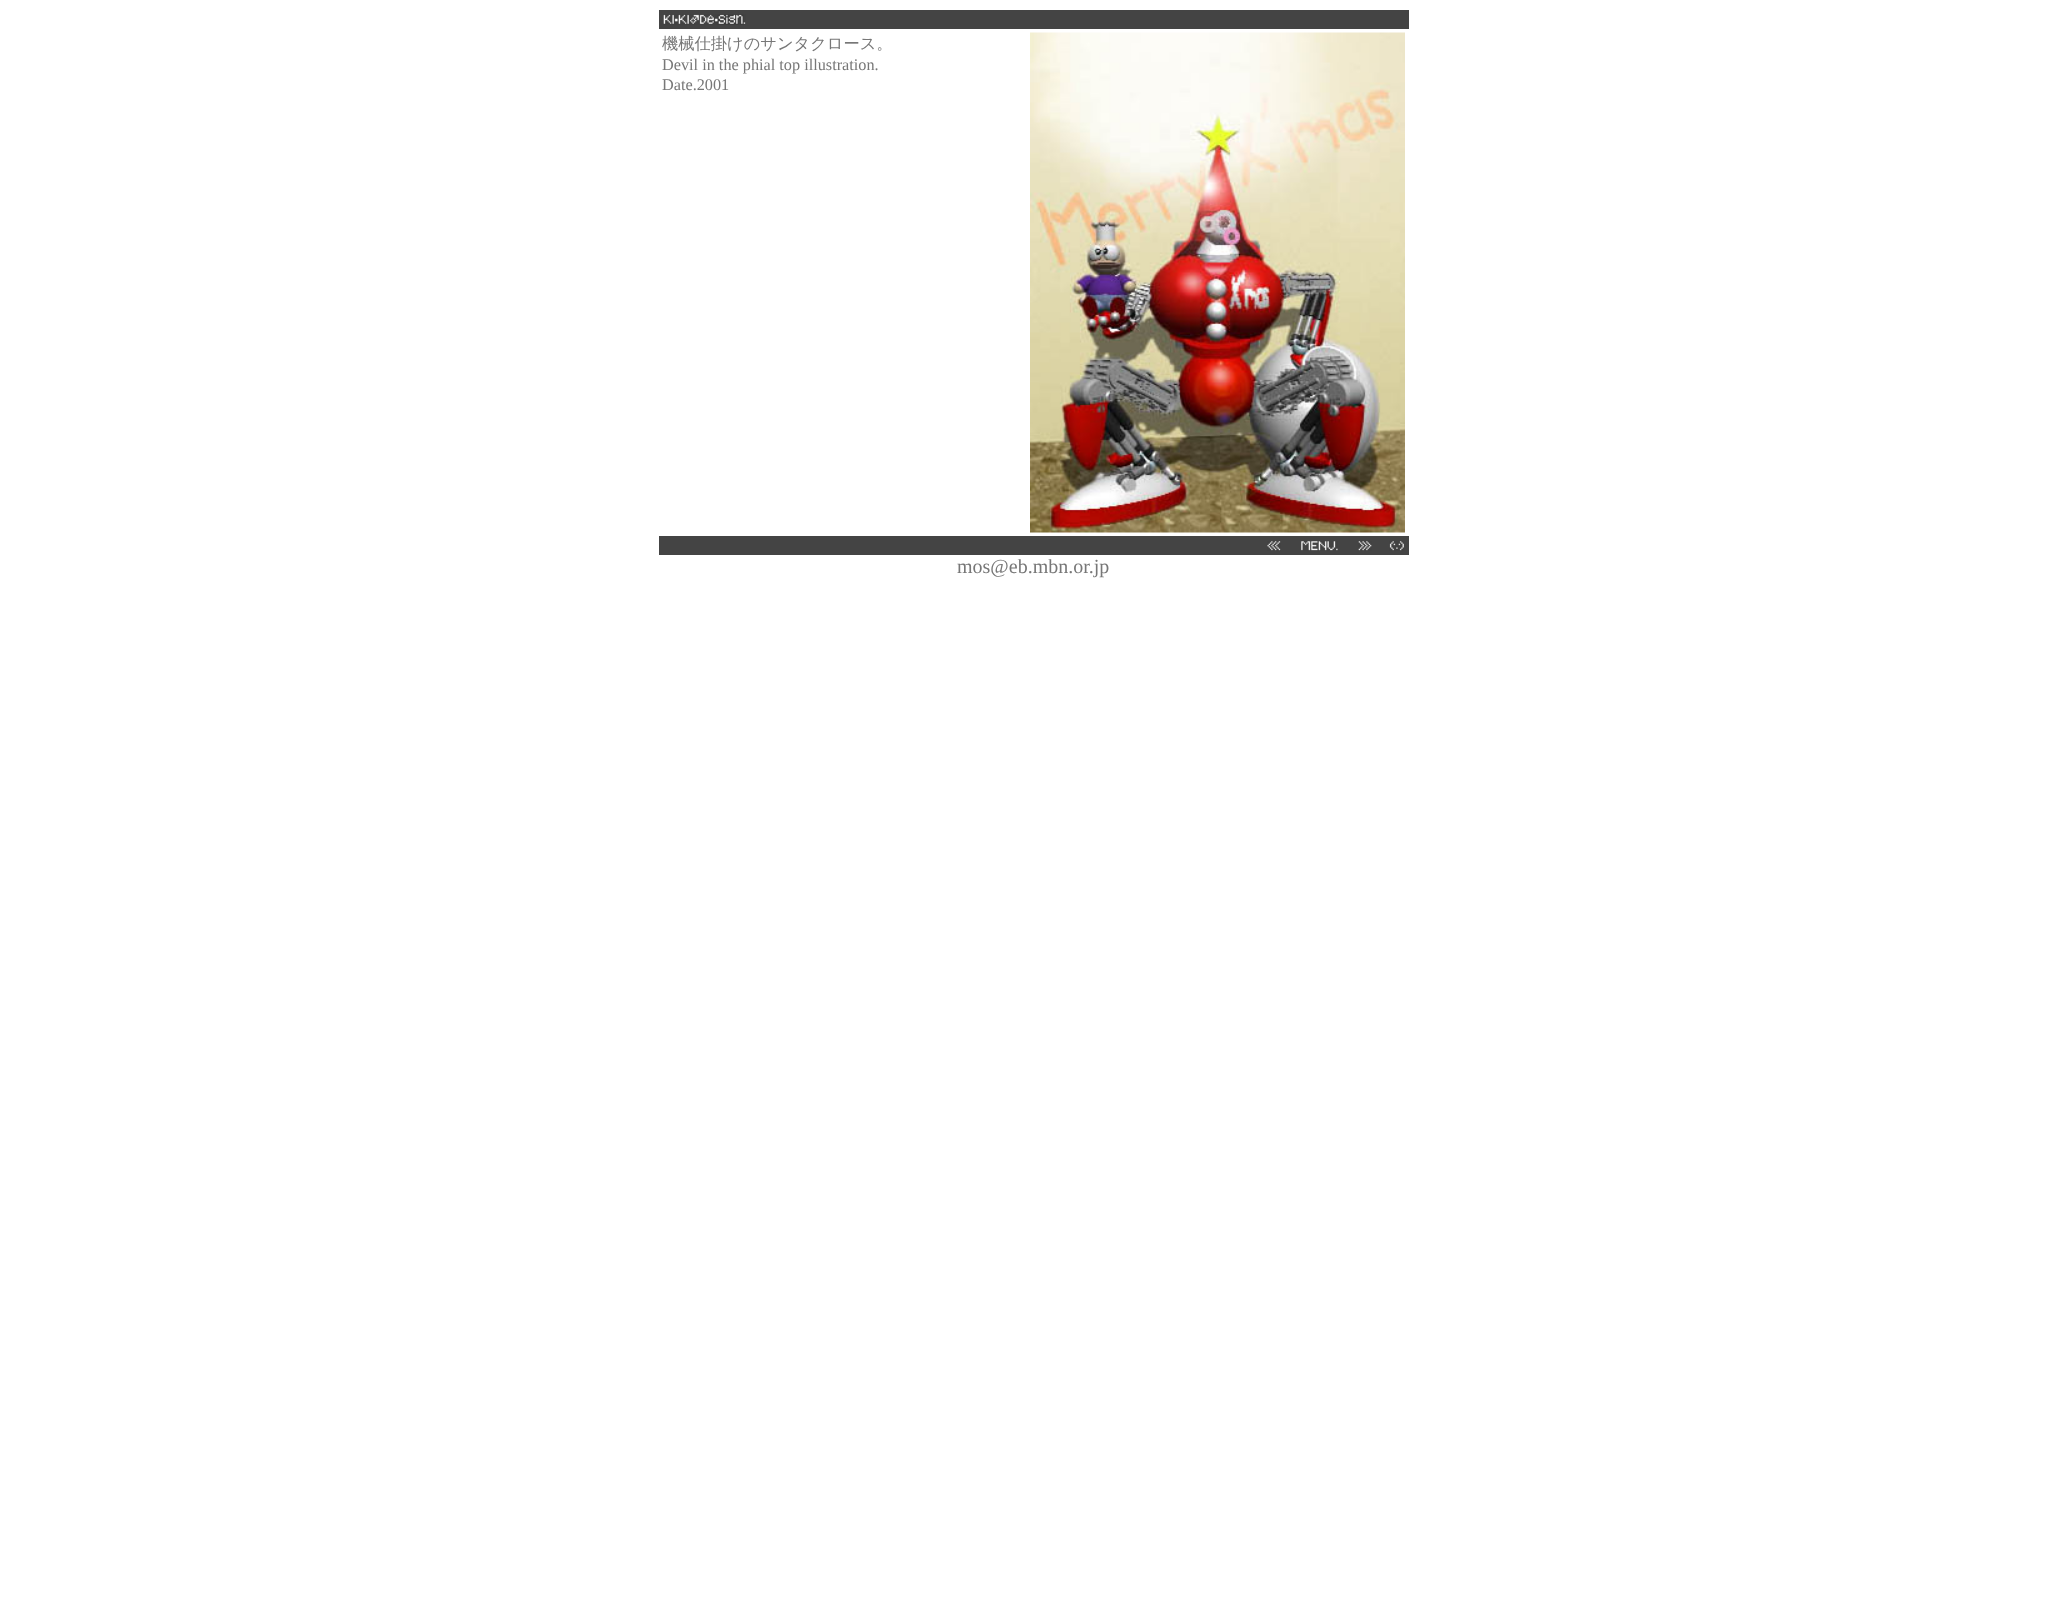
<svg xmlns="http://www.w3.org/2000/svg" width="2066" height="1615">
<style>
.a{font:500 16.25px WenQuanYi Zen Hei;fill:#777}
.b{font:16.25px Liberation Serif;fill:#777}
.c{font:20px Liberation Serif;fill:#777}
</style>
<rect width="100%" height="100%" fill="#fff"/>
<path fill="#444" d="M659 10h750v19H659z"/>
<image href="1.png" x="663" y="14" width="83" height="11"/>
<image href="2.png" x="1030" y="32" width="375" height="501"/>
<path fill="#444" d="M659 536h750v19H659z"/>
<image href="3.png" x="1267" y="541" width="14" height="10"/>
<image href="4.png" x="1301" y="541" width="37" height="10"/>
<image href="5.png" x="1358" y="541" width="14" height="10"/>
<image href="6.png" x="1389" y="541" width="15" height="10"/>
<text class="a" x="662" y="49">機械仕掛けのサンタクロース。</text>
<text class="b" x="662" y="70">Devil in the phial top illustration.</text>
<text class="b" x="662" y="90">Date.2001</text>
<text class="c" x="957" y="573">mos@eb.mbn.or.jp</text>
</svg>
